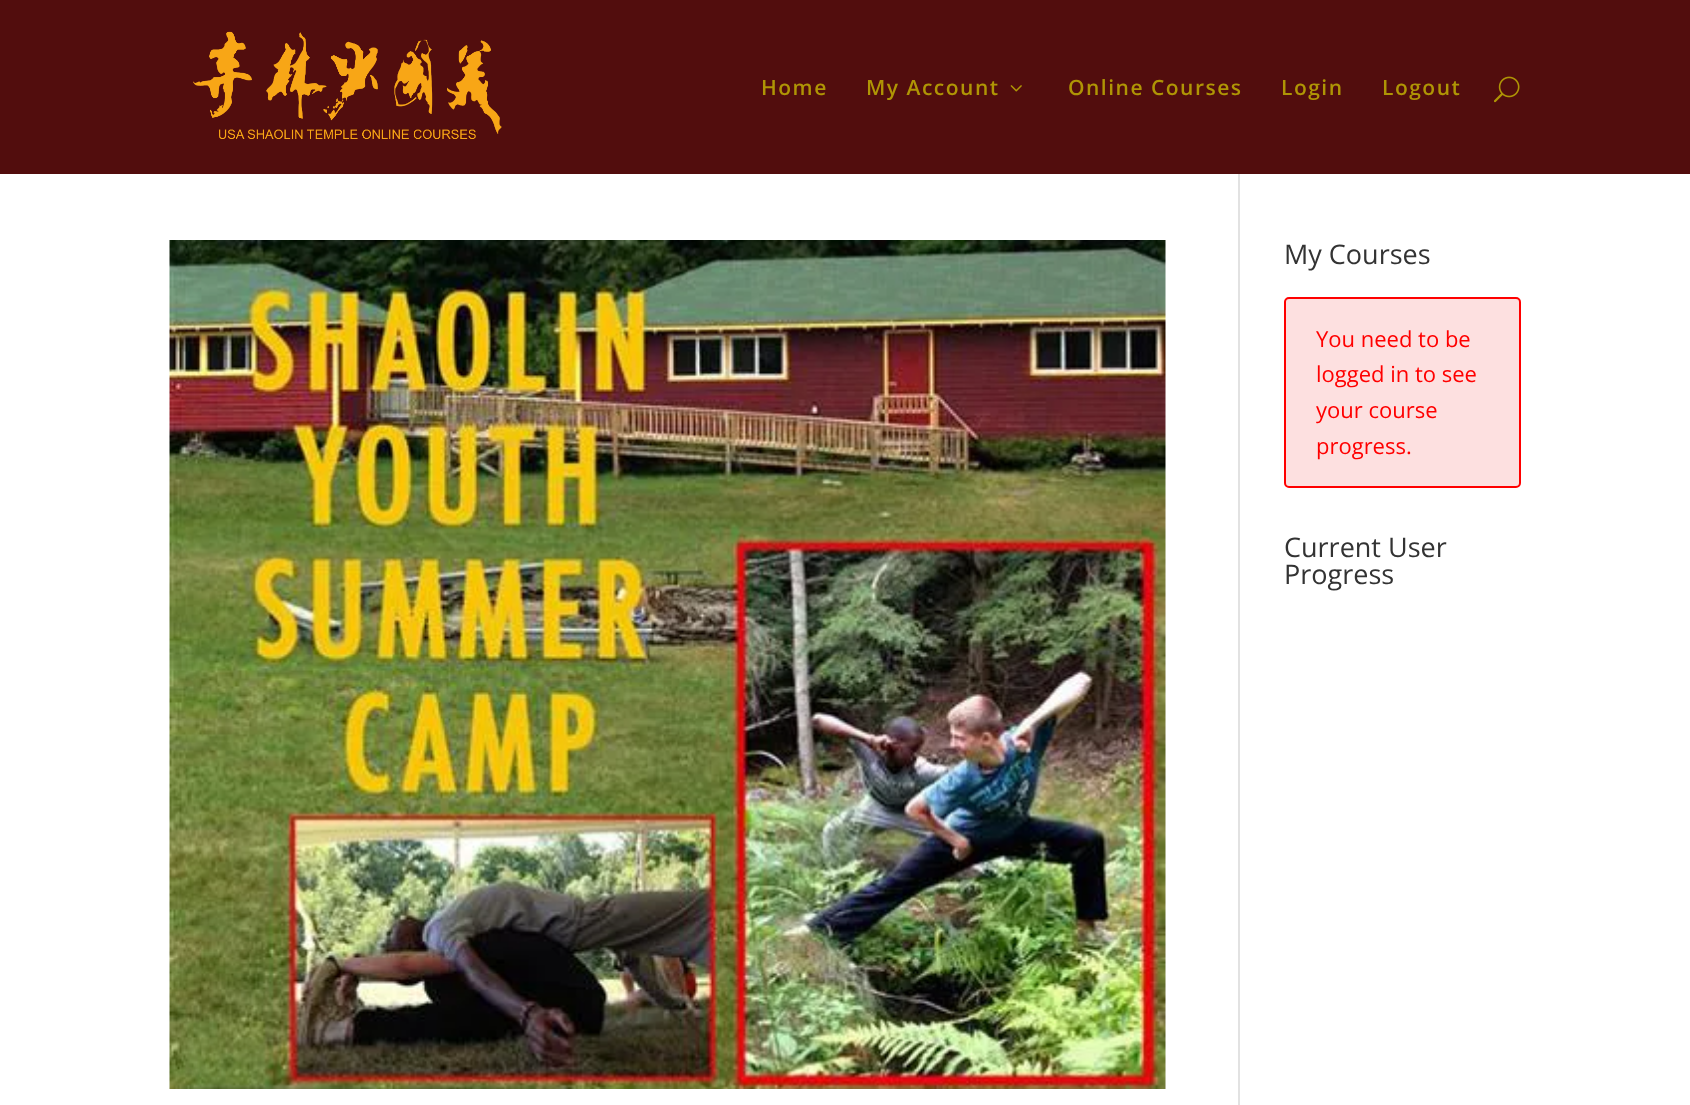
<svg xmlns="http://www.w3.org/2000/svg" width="1690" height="1105">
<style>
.a{font:600 21px Open Sans;letter-spacing:1.5px;fill:#af9505}
.b{font:27px Open Sans;fill:#333}
.c{font:22px Open Sans;fill:#f00}
</style>
<rect width="100%" height="100%" fill="#fff"/>
<path fill="#520d0d" d="M0 0h1690v174H0z"/>
<image href="1.png" x="193" y="31" width="309" height="108"/>
<image href="2.png" x="1010" y="85" width="12" height="7"/>
<image href="3.png" x="1494" y="76" width="26" height="27"/>
<path fill="#e2e2e2" d="M1238 174h2v931H1238z"/>
<image href="4.png" x="169" y="240" width="997" height="849"/>
<rect fill="#fde0e0" stroke="#f00" stroke-width="2" x="1285" y="298" width="235" height="189" rx="4"/>
<text class="a" x="761" y="95">Home</text>
<text class="a" x="866" y="95">My Account</text>
<text class="a" x="1068" y="95">Online Courses</text>
<text class="a" x="1281" y="95">Login</text>
<text class="a" x="1382" y="95">Logout</text>
<text class="b" x="1284" y="264">My Courses</text>
<text class="c" x="1316" y="347">You need to be</text>
<text class="c" x="1316" y="382">logged in to see</text>
<text class="c" x="1316" y="418">your course</text>
<text class="c" x="1316" y="454">progress.</text>
<text class="b" x="1284" y="557">Current User</text>
<text class="b" x="1284" y="584">Progress</text>
</svg>
